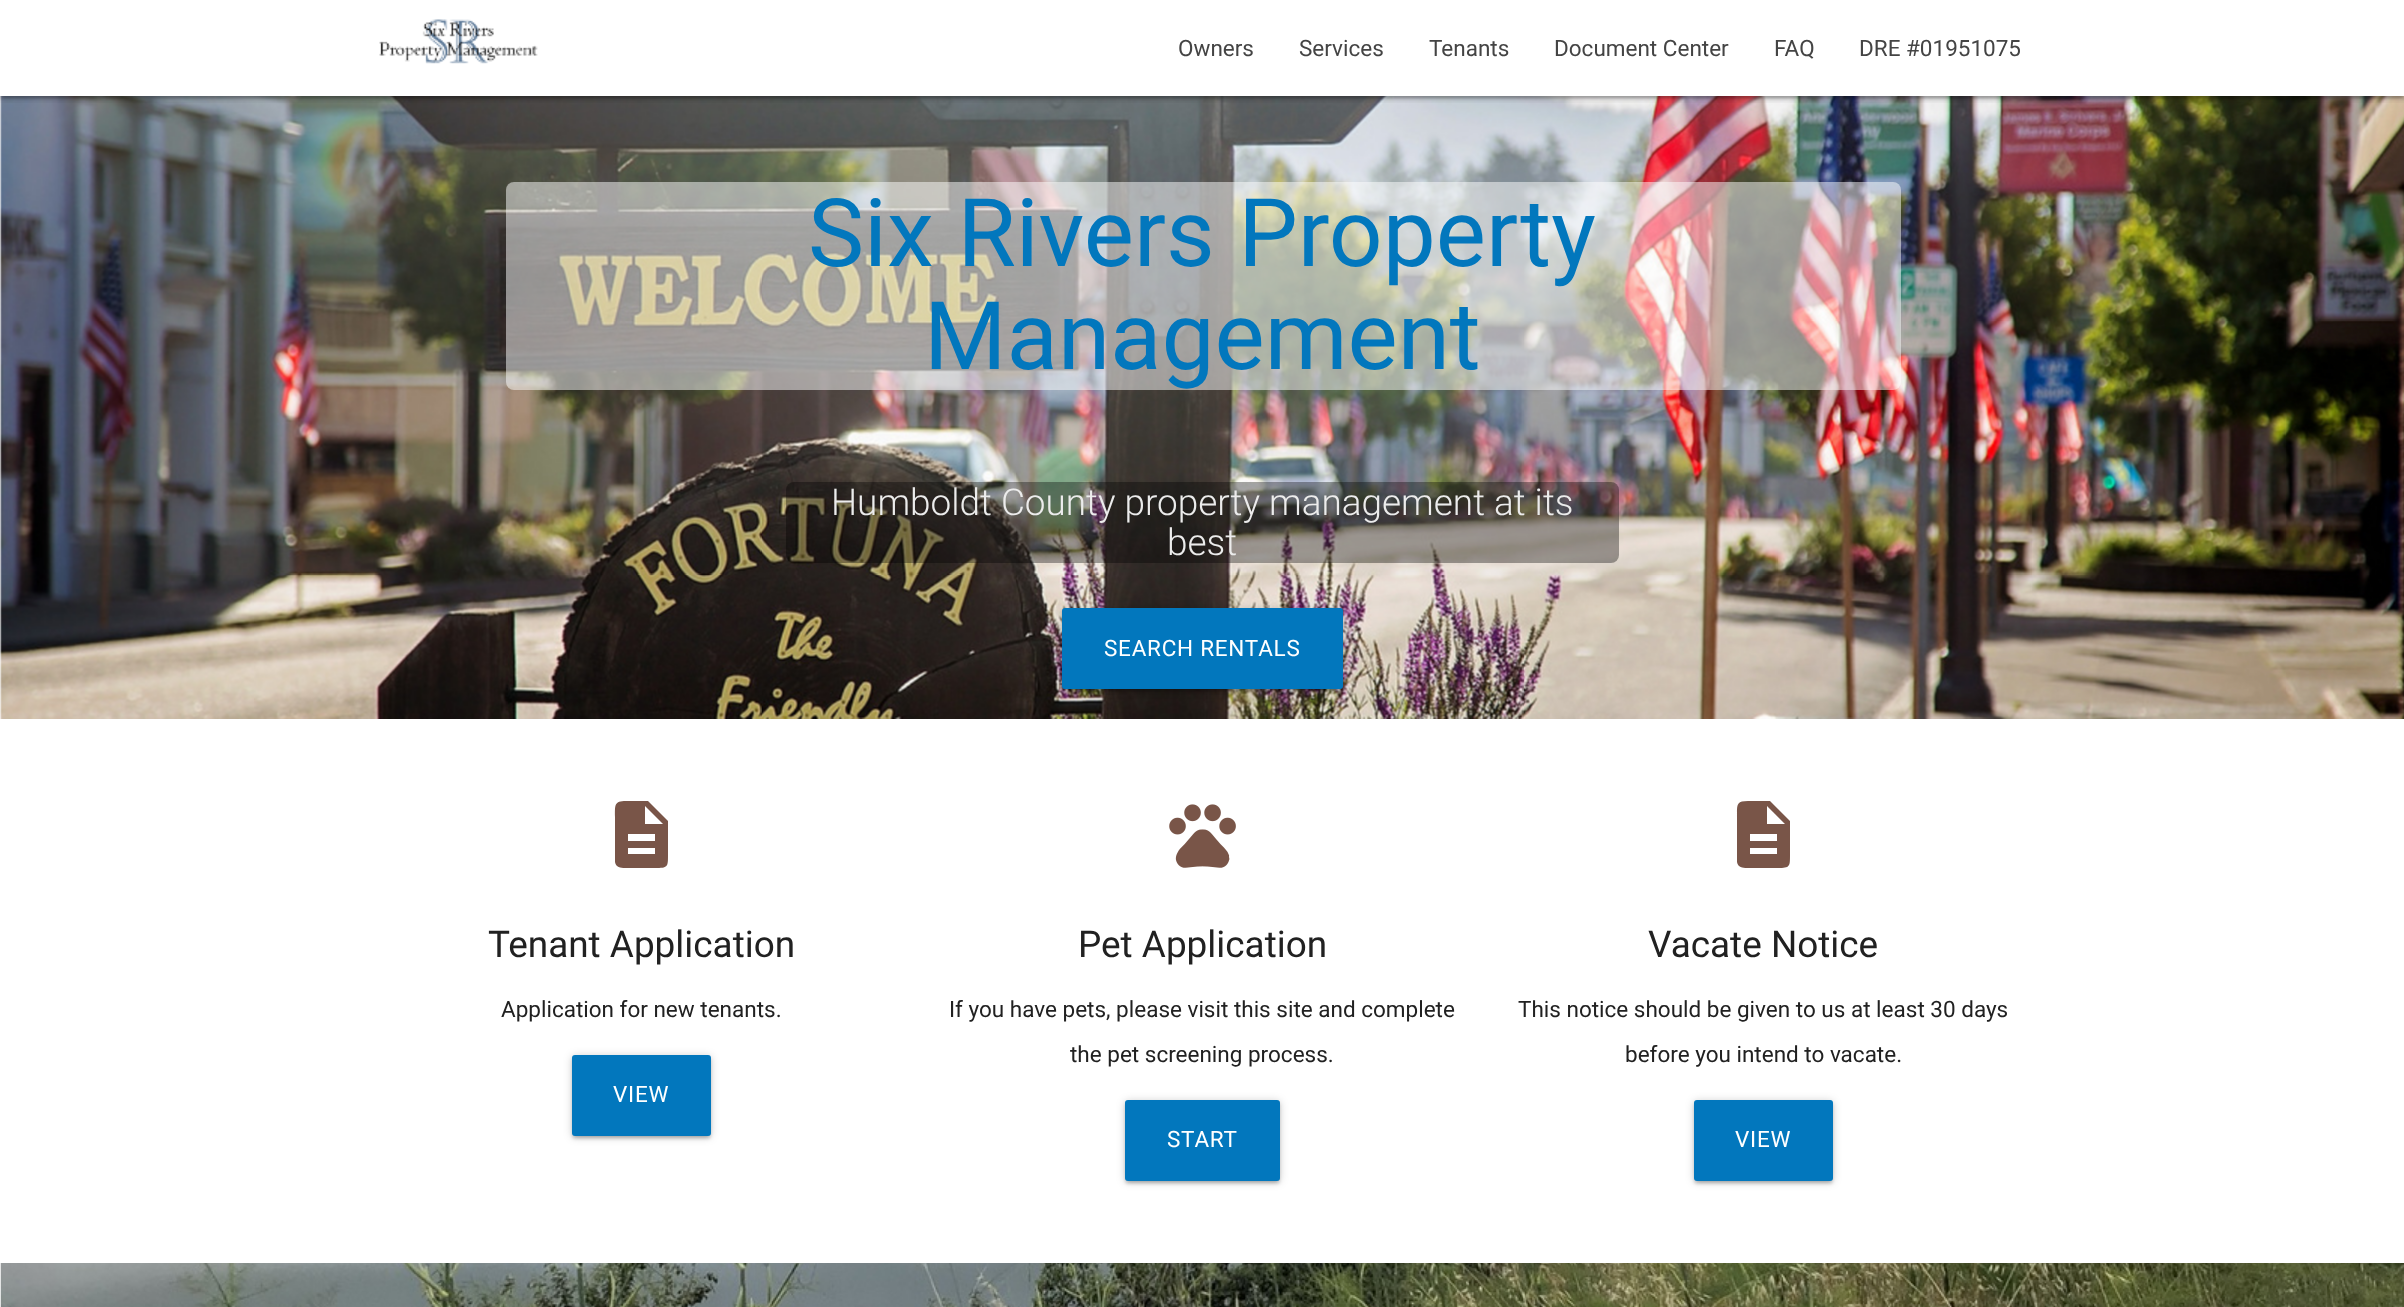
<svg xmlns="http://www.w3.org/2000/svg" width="2404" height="1307">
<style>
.a{font:22.5px Roboto;fill:#444}
.b{font:94.5px Roboto;fill:#0277bd}
.c{font:300 36.9px Roboto;fill:#ececec}
.d{font:22.5px Roboto;letter-spacing:0.75px;fill:#fff}
.e{font:36.9px Roboto;fill:#212121}
.f{font:22.5px Roboto;fill:#212121}
</style>
<defs>
<clipPath id="clip1"><path d="M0 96h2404v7H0z"/></clipPath>
<clipPath id="clip2"><path d="M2 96h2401v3H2z"/></clipPath>
<clipPath id="clip3"><path d="M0 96h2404v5H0z"/></clipPath>
</defs>
<rect width="100%" height="100%" fill="#fff"/>
<image href="2.png" x="0" y="96" width="2404" height="623"/>
<g clip-path="url(#clip1)">
<path fill="#00000033" filter="blur(4px)" d="M0 2h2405v96H0z"/>
</g>
<g clip-path="url(#clip2)">
<path fill="#0000001f" filter="blur(1px)" d="M3 8h2399v90H3z"/>
</g>
<g clip-path="url(#clip3)">
<path fill="#00000024" filter="blur(1.5px)" d="M0 3h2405v96H0z"/>
</g>
<image href="1.png" x="379" y="19" width="159" height="45"/>
<rect fill="#ffffff80" x="506" y="182" width="1395" height="208" rx="8"/>
<rect fill="#00000059" x="786" y="482" width="833" height="81" rx="8"/>
<rect fill="#00000033" filter="blur(4px)" x="1062" y="609" width="281" height="81" rx="3"/>
<path fill="#0000001f" filter="blur(1px)" d="M1065 615h275v75H1065z"/>
<rect fill="#00000024" filter="blur(1.5px)" x="1062" y="611" width="281" height="81" rx="3"/>
<rect fill="#0277bd" x="1062" y="608" width="281" height="81" rx="3"/>
<path fill="#795548" d="M645 824h18l-18-18zm10 17v-7h-27v7zm0 13v-6h-27v6zm-7-53l20 20v34c0 12 0 13-13 13h-27c-4 0-12 1-13-6v-45c0-12-1-16 11-16z"/>
<rect fill="#00000033" filter="blur(4px)" x="572" y="1056" width="139" height="81" rx="3"/>
<path fill="#0000001f" filter="blur(1px)" d="M575 1062h133v75H575z"/>
<rect fill="#00000024" filter="blur(1.5px)" x="572" y="1058" width="139" height="81" rx="3"/>
<rect fill="#0277bd" x="572" y="1055" width="139" height="81" rx="3"/>
<image href="3.png" x="1169" y="804" width="67" height="64"/>
<rect fill="#00000033" filter="blur(4px)" x="1125" y="1101" width="155" height="81" rx="3"/>
<path fill="#0000001f" filter="blur(1px)" d="M1128 1107h149v75H1128z"/>
<rect fill="#00000024" filter="blur(1.5px)" x="1125" y="1103" width="155" height="81" rx="3"/>
<rect fill="#0277bd" x="1125" y="1100" width="155" height="81" rx="3"/>
<path fill="#795548" d="M1767 824h18l-18-18zm10 17v-7h-27v7zm0 13v-6h-27v6zm-7-53l20 20v34c0 12 0 13-13 13h-27c-4 0-12 1-13-6v-45c0-12-1-16 11-16z"/>
<rect fill="#00000033" filter="blur(4px)" x="1694" y="1101" width="139" height="81" rx="3"/>
<path fill="#0000001f" filter="blur(1px)" d="M1697 1107h133v75H1697z"/>
<rect fill="#00000024" filter="blur(1.5px)" x="1694" y="1103" width="139" height="81" rx="3"/>
<rect fill="#0277bd" x="1694" y="1100" width="139" height="81" rx="3"/>
<image href="4.png" x="0" y="1263" width="2404" height="44"/>
<text class="a" x="1178" y="56">Owners</text>
<text class="a" x="1299" y="56">Services</text>
<text class="a" x="1429" y="56">Tenants</text>
<text class="a" x="1554" y="56">Document Center</text>
<text class="a" x="1774" y="56">FAQ</text>
<text class="a" x="1859" y="56">DRE #01951075</text>
<text class="b" x="808" y="266">Six Rivers Property</text>
<text class="b" x="924" y="369">Management</text>
<text class="c" x="831" y="515">Humboldt County property management at its</text>
<text class="c" x="1167" y="555">best</text>
<text class="d" x="1104" y="656">SEARCH RENTALS</text>
<text class="e" x="488" y="957">Tenant Application</text>
<text class="f" x="501" y="1017">Application for new tenants.</text>
<text class="d" x="613" y="1102">VIEW</text>
<text class="e" x="1078" y="957">Pet Application</text>
<text class="f" x="949" y="1017">If you have pets, please visit this site and complete</text>
<text class="f" x="1070" y="1062">the pet screening process.</text>
<text class="d" x="1167" y="1147">START</text>
<text class="e" x="1648" y="957">Vacate Notice</text>
<text class="f" x="1518" y="1017">This notice should be given to us at least 30 days</text>
<text class="f" x="1625" y="1062">before you intend to vacate.</text>
<text class="d" x="1735" y="1147">VIEW</text>
</svg>
